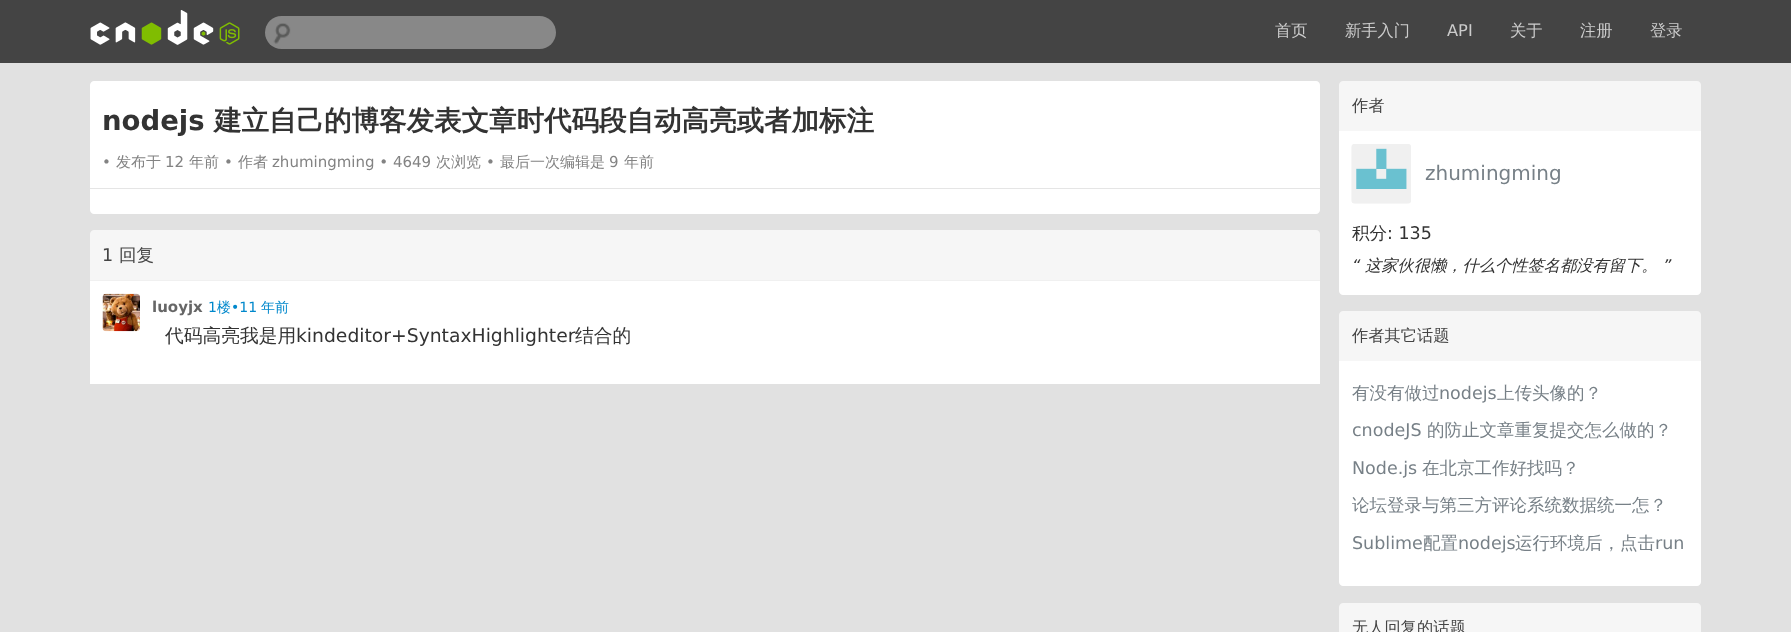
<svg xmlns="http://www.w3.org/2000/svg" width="1791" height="632">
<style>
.a{font:500 16.25px WenQuanYi Zen Hei;fill:#ccc}
.b{font:16.25px DejaVu Sans;fill:#ccc}
.c{font:bold 27.5px DejaVu Sans;fill:#333}
.d{font:bold 27.5px WenQuanYi Zen Hei;fill:#333}
.e{font:15px DejaVu Sans;fill:#838383}
.f{font:500 15px WenQuanYi Zen Hei;fill:#838383}
.g{font:17.5px DejaVu Sans;fill:#444}
.h{font:500 17.5px WenQuanYi Zen Hei;fill:#444}
.i{font:bold 15px DejaVu Sans;fill:#666}
.j{font:14px DejaVu Sans;fill:#08c}
.k{font:500 14px WenQuanYi Zen Hei;fill:#08c}
.l{font:500 18.75px WenQuanYi Zen Hei;fill:#333}
.m{font:18.75px DejaVu Sans;fill:#333}
.n{font:500 16.25px WenQuanYi Zen Hei;fill:#444}
.o{font:20px DejaVu Sans;fill:#778087}
.p{font:500 17.5px WenQuanYi Zen Hei;fill:#333}
.q{font:17.5px DejaVu Sans;fill:#333}
.r{font:italic 16.25px DejaVu Sans;fill:#333}
.s{font:italic 500 16.25px WenQuanYi Zen Hei;fill:#333}
.t{font:500 17.5px WenQuanYi Zen Hei;fill:#778087}
.u{font:17.5px DejaVu Sans;fill:#778087}
</style>
<rect width="100%" height="100%" fill="#e1e1e1"/>
<path fill="#444" d="M0 0h1791v63H0z"/>
<image href="1.png" x="90" y="10" width="150" height="35"/>
<rect fill="#888" x="265" y="16" width="291" height="33" rx="16.5"/>
<image href="2.png" x="273" y="23" width="18" height="21"/>
<path fill="#fff" d="M94 81h1222c2 0 4 2 4 4v103h-1230v-103c0-2 2-4 4-4z"/>
<path fill="#fff" d="M90 188h1230v22c0 2-2 4-4 4h-1222c-2 0-4-2-4-4z"/>
<path fill="#e5e5e5" d="M90 188h1230v1H90z"/>
<path fill="#f6f6f6" d="M94 230h1222c2 0 4 2 4 4v46h-1230v-46c0-2 2-4 4-4z"/>
<path fill="#fff" d="M90 281h1230v103H90z"/>
<path fill="#f0f0f0" d="M90 280h1230v1H90z"/>
<image href="3.png" x="102" y="293" width="38" height="39"/>
<path fill="#f6f6f6" d="M1343 81h354c2 0 4 2 4 4v46h-362v-46c0-2 2-4 4-4z"/>
<path fill="#fff" d="M1339 131h362v160c0 2-2 4-4 4h-354c-2 0-4-2-4-4z"/>
<image href="4.png" x="1351" y="144" width="60" height="60"/>
<path fill="#f6f6f6" d="M1343 311h354c2 0 4 2 4 4v46h-362v-46c0-2 2-4 4-4z"/>
<path fill="#fff" d="M1339 361h362v221c0 2-2 4-4 4h-354c-2 0-4-2-4-4z"/>
<path fill="#f6f6f6" d="M1343 603h354c2 0 4 2 4 4v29h-362v-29c0-2 2-4 4-4z"/>
<text class="a" x="1275" y="36">首页</text>
<text class="a" x="1345" y="36">新手入门</text>
<text class="b" x="1447" y="36">API</text>
<text class="a" x="1510" y="36">关于</text>
<text class="a" x="1580" y="36">注册</text>
<text class="a" x="1650" y="36">登录</text>
<text class="c" x="102" y="130">nodejs</text>
<text class="d" x="214" y="130">建立自己的博客发表文章时代码段自动高亮或者加标注</text>
<text class="e" x="102" y="167">•</text>
<text class="f" x="116" y="167">发布于</text>
<text class="e" x="165" y="167">12</text>
<text class="f" x="189" y="167">年前</text>
<text class="e" x="224" y="167">•</text>
<text class="f" x="238" y="167">作者</text>
<text class="e" x="272" y="167">zhumingming • 4649</text>
<text class="f" x="436" y="167">次浏览</text>
<text class="e" x="486" y="167">•</text>
<text class="f" x="500" y="167">最后一次编辑是</text>
<text class="e" x="609" y="167">9</text>
<text class="f" x="624" y="167">年前</text>
<text class="g" x="102" y="261">1</text>
<text class="h" x="119" y="261">回复</text>
<text class="i" x="152" y="312">luoyjx</text>
<text class="j" x="208" y="312">1</text>
<text class="k" x="217" y="312">楼</text>
<text class="j" x="231" y="312">•11</text>
<text class="k" x="261" y="312">年前</text>
<text class="l" x="165" y="342">代码高亮我是用</text>
<text class="m" x="296" y="342">kindeditor+SyntaxHighlighter</text>
<text class="l" x="575" y="342">结合的</text>
<text class="n" x="1352" y="111">作者</text>
<text class="o" x="1425" y="180">zhumingming</text>
<text class="p" x="1352" y="239">积分</text>
<text class="q" x="1387" y="239">: 135</text>
<text class="r" x="1352" y="271">“</text>
<text class="s" x="1365" y="271">这家伙很懒，什么个性签名都没有留下。</text>
<text class="r" x="1663" y="271">”</text>
<text class="n" x="1352" y="341">作者其它话题</text>
<text class="t" x="1352" y="399">有没有做过</text>
<text class="u" x="1439" y="399">nodejs</text>
<text class="t" x="1497" y="399">上传头像的？</text>
<text class="u" x="1352" y="436">cnodeJS</text>
<text class="t" x="1427" y="436">的防止文章重复提交怎么做的？</text>
<text class="u" x="1352" y="474">Node.js</text>
<text class="t" x="1422" y="474">在北京工作好找吗？</text>
<text class="t" x="1352" y="511">论坛登录与第三方评论系统数据统一怎？</text>
<text class="u" x="1352" y="549">Sublime</text>
<text class="t" x="1423" y="549">配置</text>
<text class="u" x="1458" y="549">nodejs</text>
<text class="t" x="1515" y="549">运行环境后，点击</text>
<text class="u" x="1655" y="549">run</text>
<text class="n" x="1352" y="633">无人回复的话题</text>
</svg>
